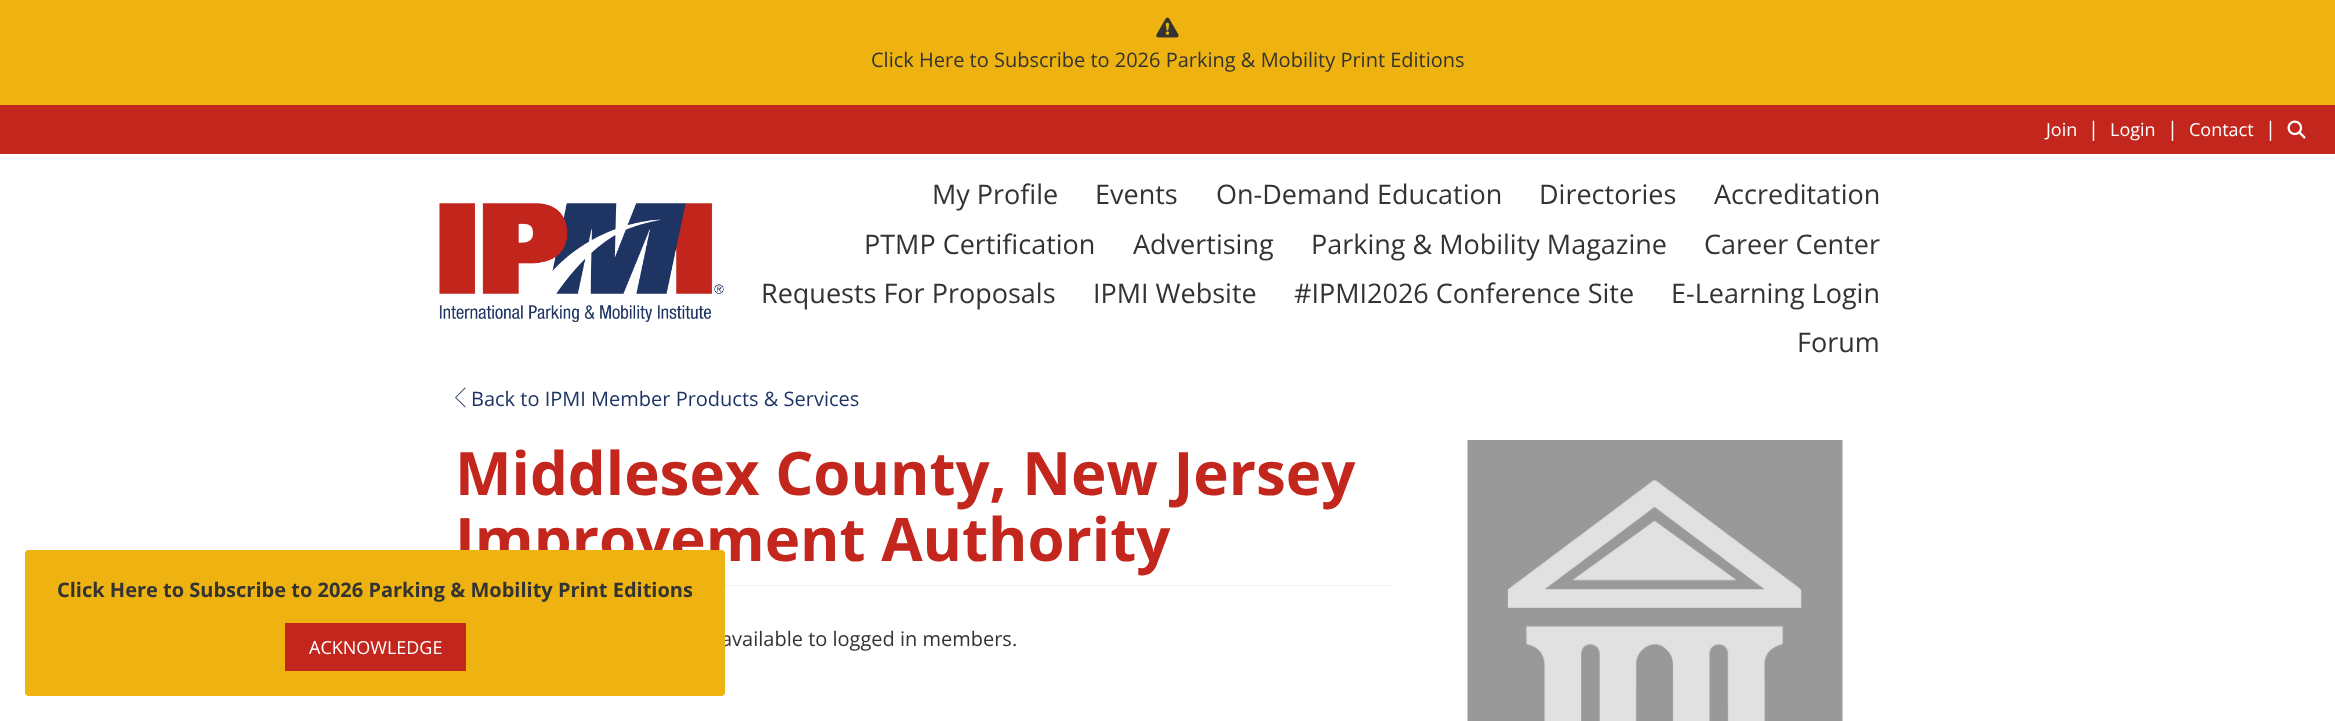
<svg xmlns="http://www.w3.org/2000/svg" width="2335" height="721">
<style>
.a{font:20px Open Sans;fill:#333}
.b{font:18px Open Sans;fill:#fff}
.c{font:20px Open Sans;fill:#fff}
.d{font:27px Open Sans;fill:#333}
.e{font:20px Open Sans;fill:#1e3464}
.f{font:bold 60px Open Sans;fill:#c2261c}
.g{font:bold 20px Open Sans;fill:#333}
</style>
<rect width="100%" height="100%" fill="#fff"/>
<path fill="#eeb310" d="M0 0h2335v105H0z"/>
<image href="1.png" x="1156" y="17" width="23" height="21"/>
<path fill="#c2261c" d="M0 105h2335v49H0z"/>
<image href="2.png" x="2287" y="120" width="19" height="19"/>
<image href="3.png" x="439" y="203" width="285" height="119"/>
<image href="4.png" x="455" y="387" width="11" height="21"/>
<path fill="#f1f1f1" d="M725 585h668v1H725z"/>
<image href="5.png" x="1467" y="440" width="376" height="281"/>
<text class="a" x="871" y="67">Click Here to Subscribe to 2026 Parking &amp; Mobility Print Editions</text>
<text class="b" x="2046" y="136">Join</text>
<text class="c" x="2088" y="136">|</text>
<text class="b" x="2110" y="136">Login</text>
<text class="c" x="2167" y="136">|</text>
<text class="b" x="2189" y="136">Contact</text>
<text class="c" x="2265" y="136">|</text>
<text class="d" x="932" y="204">My Profile</text>
<text class="d" x="1095" y="204">Events</text>
<text class="d" x="1216" y="204">On-Demand Education</text>
<text class="d" x="1539" y="204">Directories</text>
<text class="d" x="1714" y="204">Accreditation</text>
<text class="d" x="864" y="254">PTMP Certification</text>
<text class="d" x="1133" y="254">Advertising</text>
<text class="d" x="1311" y="254">Parking &amp; Mobility Magazine</text>
<text class="d" x="1704" y="254">Career Center</text>
<text class="d" x="761" y="303">Requests For Proposals</text>
<text class="d" x="1093" y="303">IPMI Website</text>
<text class="d" x="1294" y="303">#IPMI2026 Conference Site</text>
<text class="d" x="1671" y="303">E-Learning Login</text>
<text class="d" x="1797" y="352">Forum</text>
<text class="e" x="471" y="406">Back to IPMI Member Products &amp; Services</text>
<text class="f" x="455" y="495">Middlesex County, New Jersey</text>
<text class="f" x="455" y="561">Improvement Authority</text>
<text class="a" x="721" y="646">available to logged in members.</text>
<rect fill="#eeb310" x="25" y="550" width="700" height="146" rx="4"/>
<path fill="#c2261c" d="M285 623h181v48H285z"/>
<text class="b" x="309" y="654">ACKNOWLEDGE</text>
<text class="g" x="57" y="597">Click Here to Subscribe to 2026 Parking &amp; Mobility Print Editions</text>
</svg>
